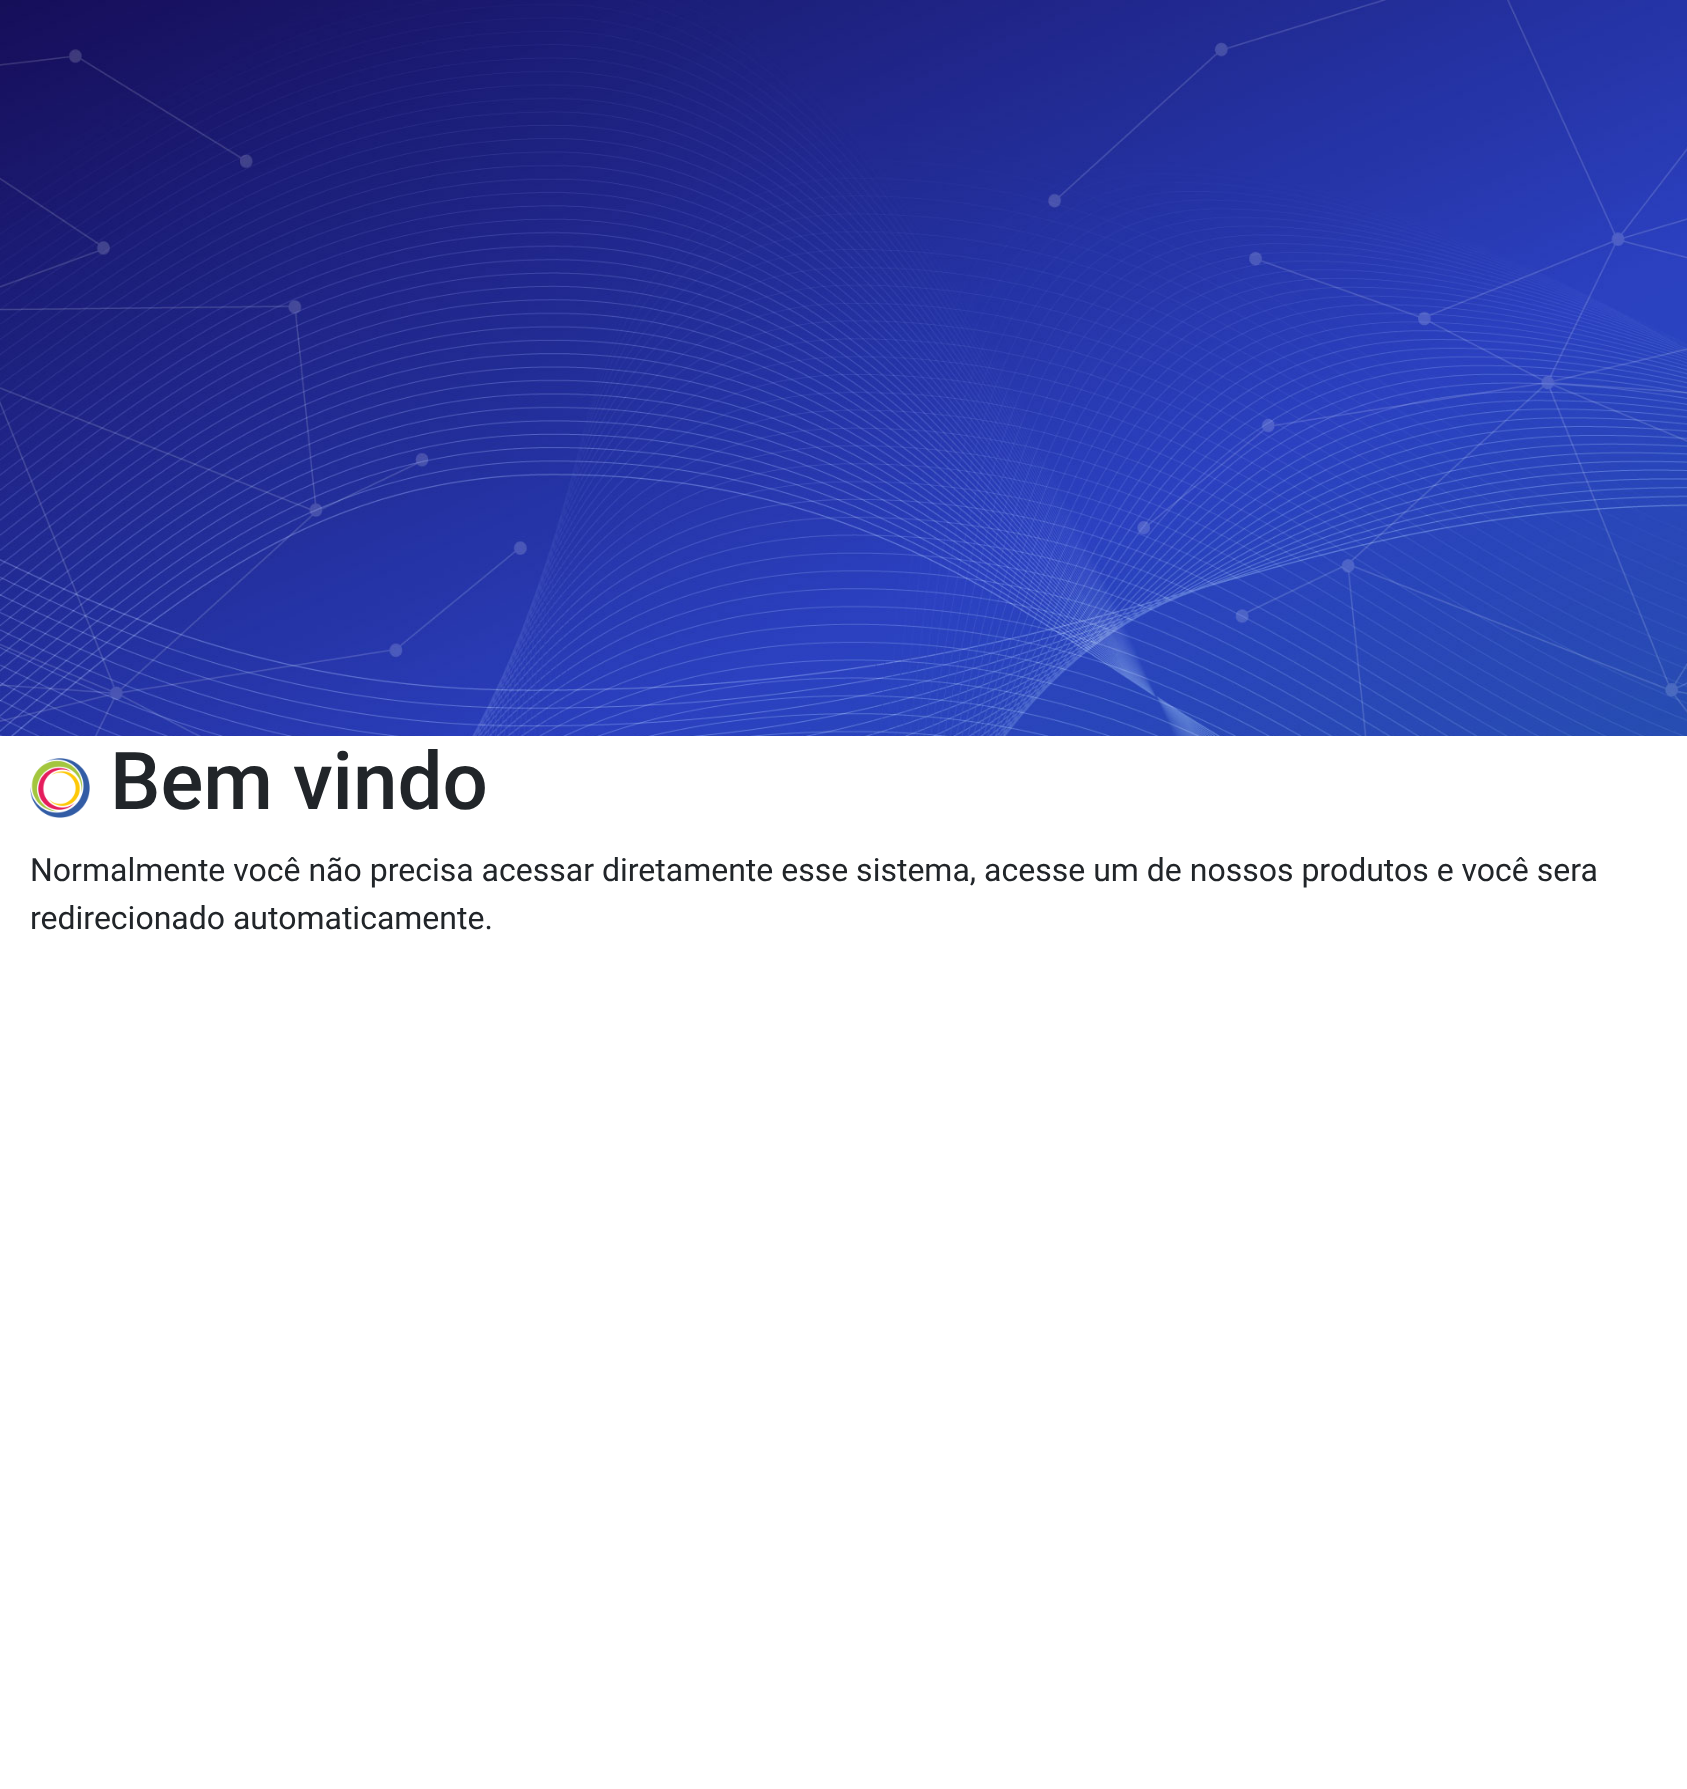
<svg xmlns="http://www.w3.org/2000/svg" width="1687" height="1789">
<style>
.a{font:500 80px Roboto;fill:#212529}
.b{font:32px Roboto;fill:#212529}
</style>
<rect width="100%" height="100%" fill="#fff"/>
<image href="1.png" x="0" y="0" width="1687" height="736"/>
<image href="2.png" x="30" y="758" width="60" height="60"/>
<text class="a" x="110" y="809">Bem vindo</text>
<text class="b" x="30" y="881">Normalmente você não precisa acessar diretamente esse sistema, acesse um de nossos produtos e você sera</text>
<text class="b" x="30" y="929">redirecionado automaticamente.</text>
</svg>
